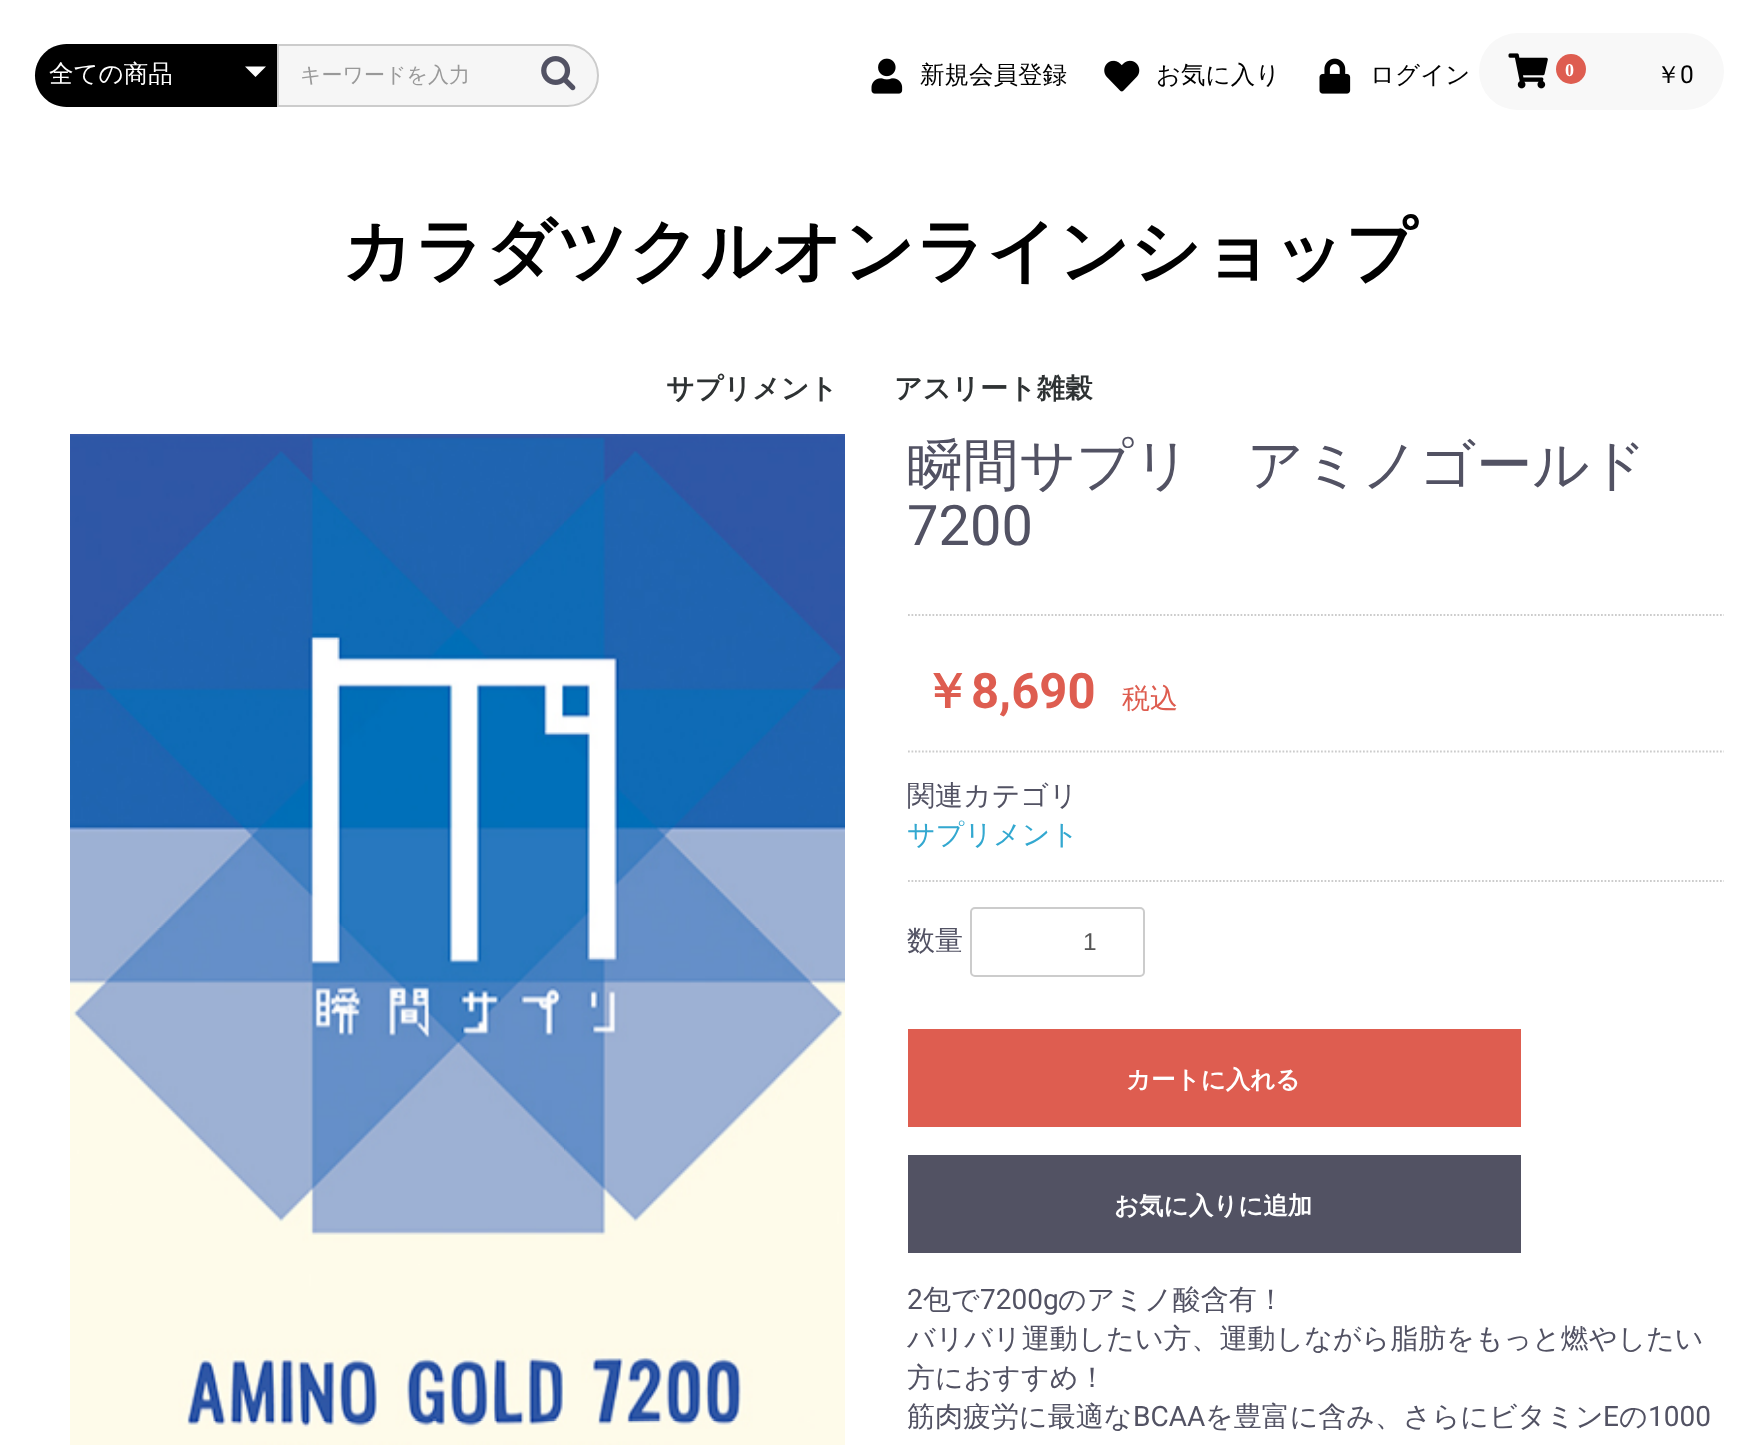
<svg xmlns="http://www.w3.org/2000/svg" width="1758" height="1445">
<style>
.a{font:500 24.5px WenQuanYi Zen Hei;fill:#fff}
.b{font:500 21px WenQuanYi Zen Hei;fill:#999}
.c{font:500 24.5px WenQuanYi Zen Hei;fill:#000}
.d{font:bold 18px Liberation Serif;fill:#fff}
.e{font:24.5px Roboto;fill:#000}
.f{font:bold 70px WenQuanYi Zen Hei;fill:#000}
.g{font:bold 28px WenQuanYi Zen Hei;fill:#2e3233}
.h{font:500 56px WenQuanYi Zen Hei;fill:#525263}
.i{font:56px Roboto;fill:#525263}
.j{font:bold 49px WenQuanYi Zen Hei;fill:#de5d50}
.k{font:bold 49px Roboto;fill:#de5d50}
.l{font:500 28px WenQuanYi Zen Hei;fill:#de5d50}
.m{font:500 28px WenQuanYi Zen Hei;fill:#525263}
.n{font:500 28px WenQuanYi Zen Hei;fill:#33a8d0}
.o{font:24.5px Liberation Sans;fill:#555}
.p{font:bold 24.5px WenQuanYi Zen Hei;fill:#fff}
.q{font:28px Roboto;fill:#525263}
</style>
<rect width="100%" height="100%" fill="#fff"/>
<path fill="#000" d="M66.5 44h210.5v63h-210.5c-17.5 0-31.5-14-31.5-31.5c0-17.5 14-31.5 31.5-31.5z"/>
<path fill="#fff" d="M245 66.5h21l-10.5 10.5z"/>
<path fill="#f6f6f6" stroke="#ccc" stroke-width="2" d="M278 45h289.5c17 0 30.5 13.5 30.5 30.5c0 17-13.5 30.5-30.5 30.5h-289.5z"/>
<image href="1.png" x="541" y="56" width="35" height="35"/>
<image href="2.png" x="871" y="58" width="32" height="36"/>
<image href="3.png" x="1104" y="60" width="36" height="32"/>
<image href="4.png" x="1319" y="58" width="32" height="36"/>
<rect fill="#f8f8f8" x="1479" y="33" width="245" height="77" rx="38.5"/>
<image href="5.png" x="1508" y="53" width="40" height="36"/>
<circle fill="#de5d50" cx="1571" cy="69" r="15"/>
<image href="6.png" x="70" y="434" width="775" height="1011"/>
<path fill="none" stroke="#ccc" stroke-width="1.8" stroke-dasharray="1.75 1.75" d="M908 615h816"/>
<path fill="none" stroke="#ccc" stroke-width="1.8" stroke-dasharray="1.75 1.75" d="M908 751.5h816"/>
<path fill="none" stroke="#ccc" stroke-width="1.8" stroke-dasharray="1.75 1.75" d="M908 881h816"/>
<rect fill="none" stroke="#ccc" stroke-width="2" x="971" y="908" width="173" height="68" rx="4"/>
<path fill="#de5d50" d="M908 1029h613v98H908z"/>
<path fill="#525263" d="M908 1155h613v98H908z"/>
<text class="a" x="49" y="82">全ての商品</text>
<text class="b" x="300" y="82">キーワードを入力</text>
<text class="c" x="920" y="83">新規会員登録</text>
<text class="c" x="1156" y="83">お気に入り</text>
<text class="c" x="1370" y="83">ログイン</text>
<text class="d" x="1565" y="76">0</text>
<text class="c" x="1656" y="83">￥</text>
<text class="e" x="1680" y="83">0</text>
<text class="f" x="342" y="275">カラダツクルオンラインショップ</text>
<text class="g" x="666" y="398">サプリメント</text>
<text class="g" x="894" y="398">アスリート雑穀</text>
<text class="h" x="907" y="484">瞬間サプリ　アミノゴールド</text>
<text class="i" x="907" y="545">7200</text>
<text class="j" x="922" y="708">￥</text>
<text class="k" x="971" y="708">8,690</text>
<text class="l" x="1122" y="708">税込</text>
<text class="m" x="907" y="805">関連カテゴリ</text>
<text class="n" x="907" y="844">サプリメント</text>
<text class="m" x="907" y="950">数量</text>
<text class="o" x="1083" y="950">1</text>
<text class="p" x="1126" y="1088">カートに入れる</text>
<text class="p" x="1114" y="1214">お気に入りに追加</text>
<text class="q" x="907" y="1309">2</text>
<text class="m" x="923" y="1309">包で</text>
<text class="q" x="980" y="1309">7200g</text>
<text class="m" x="1058" y="1309">のアミノ酸含有！</text>
<text class="m" x="907" y="1348">バリバリ運動したい方、運動しながら脂肪をもっと燃やしたい</text>
<text class="m" x="907" y="1387">方におすすめ！</text>
<text class="m" x="907" y="1426">筋肉疲労に最適な</text>
<text class="q" x="1133" y="1426">BCAA</text>
<text class="m" x="1205" y="1426">を豊富に含み、さらにビタミン</text>
<text class="q" x="1603" y="1426">E</text>
<text class="m" x="1619" y="1426">の</text>
<text class="q" x="1648" y="1426">1000</text>
</svg>
